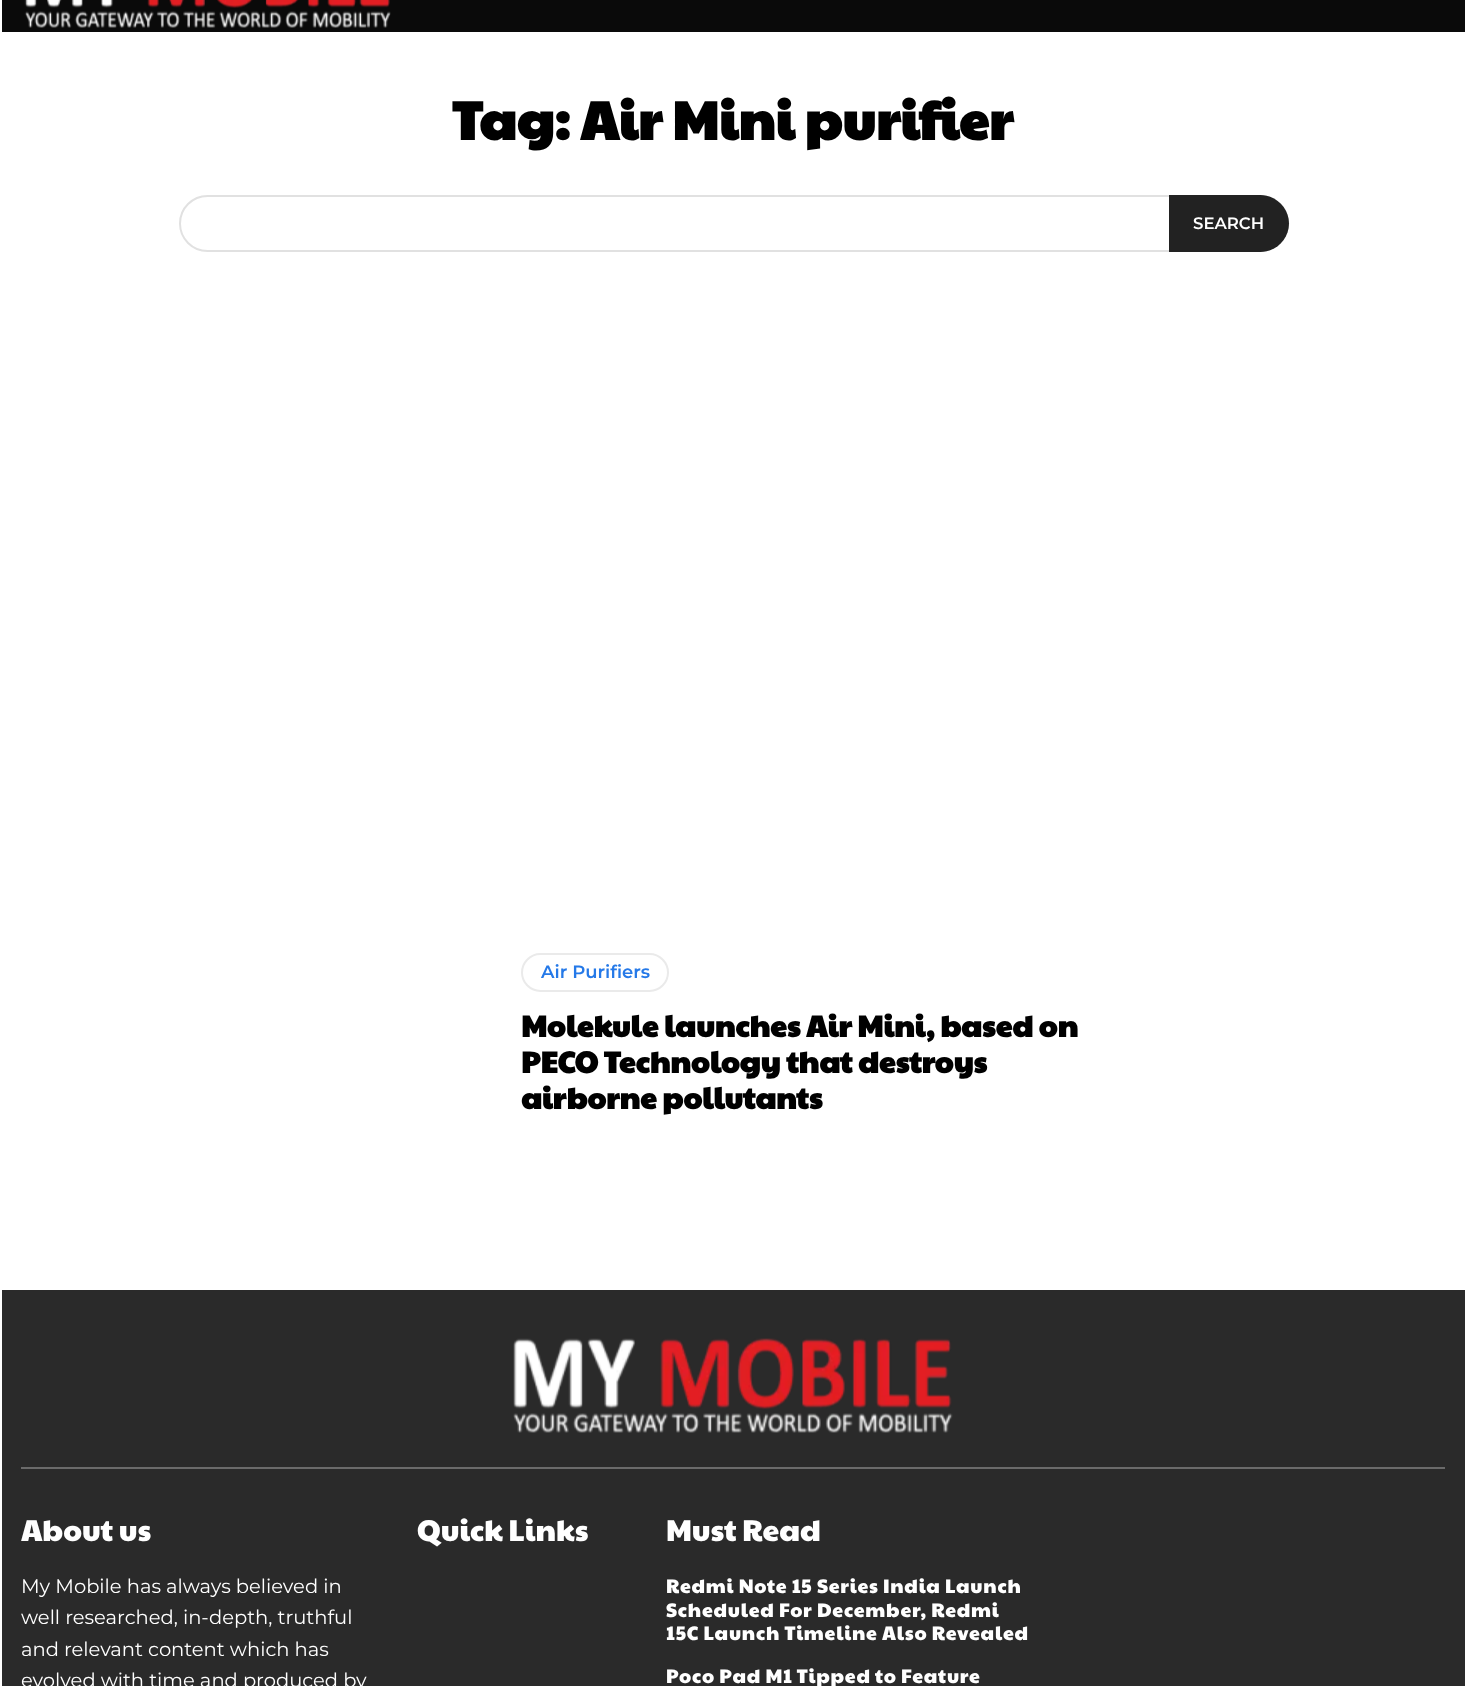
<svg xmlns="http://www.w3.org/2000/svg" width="1465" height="1686">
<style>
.a{font:bold 54px Paytone One;fill:#000}
.b{font:600 16.5px Montserrat;fill:#fff}
.c{font:600 18px Montserrat;fill:#2579e8}
.d{font:bold 30px Paytone One;fill:#000}
.e{font:30px Paytone One;fill:#fff}
.f{font:19.5px Montserrat;fill:#fff}
.g{font:19.5px Paytone One;letter-spacing:0.75px;fill:#fff}
</style>
<rect width="100%" height="100%" fill="#fff"/>
<path fill="#0a0a0a" d="M2 0h1463v32H2z"/>
<image href="1.png" x="24" y="0" width="367" height="28"/>
<rect fill="none" stroke="#e1e1e1" stroke-width="2" x="180" y="196" width="1108" height="55" rx="27.5"/>
<path fill="#222" d="M1169 195h91.5c15.5 0 28.5 13 28.5 28.5c0 15.5-13 28.5-28.5 28.5h-91.5z"/>
<rect fill="none" stroke="#eaeaea" stroke-width="2" x="522" y="954" width="146" height="37" rx="18.5"/>
<path fill="#2a2a2a" d="M2 1290h1463v396H2z"/>
<path fill="#6a6a6a" d="M21 1467h1424v2H21z"/>
<image href="2.png" x="513" y="1338" width="440" height="95"/>
<text class="a" x="452" y="140">Tag: Air Mini purifier</text>
<text class="b" x="1193" y="229">SEARCH</text>
<text class="c" x="541" y="978">Air Purifiers</text>
<text class="d" x="521" y="1037">Molekule launches Air Mini, based on</text>
<text class="d" x="521" y="1073">PECO Technology that destroys</text>
<text class="d" x="521" y="1109">airborne pollutants</text>
<text class="e" x="21" y="1541">About us</text>
<text class="f" x="21" y="1593">My Mobile has always believed in</text>
<text class="f" x="21" y="1624">well researched, in-depth, truthful</text>
<text class="f" x="21" y="1656">and relevant content which has</text>
<text class="f" x="21" y="1687">evolved with time and produced by</text>
<text class="e" x="417" y="1541">Quick Links</text>
<text class="e" x="666" y="1541">Must Read</text>
<text class="g" x="666" y="1593">Redmi Note 15 Series India Launch</text>
<text class="g" x="666" y="1617">Scheduled For December, Redmi</text>
<text class="g" x="666" y="1640">15C Launch Timeline Also Revealed</text>
<text class="g" x="666" y="1683">Poco Pad M1 Tipped to Feature</text>
</svg>
